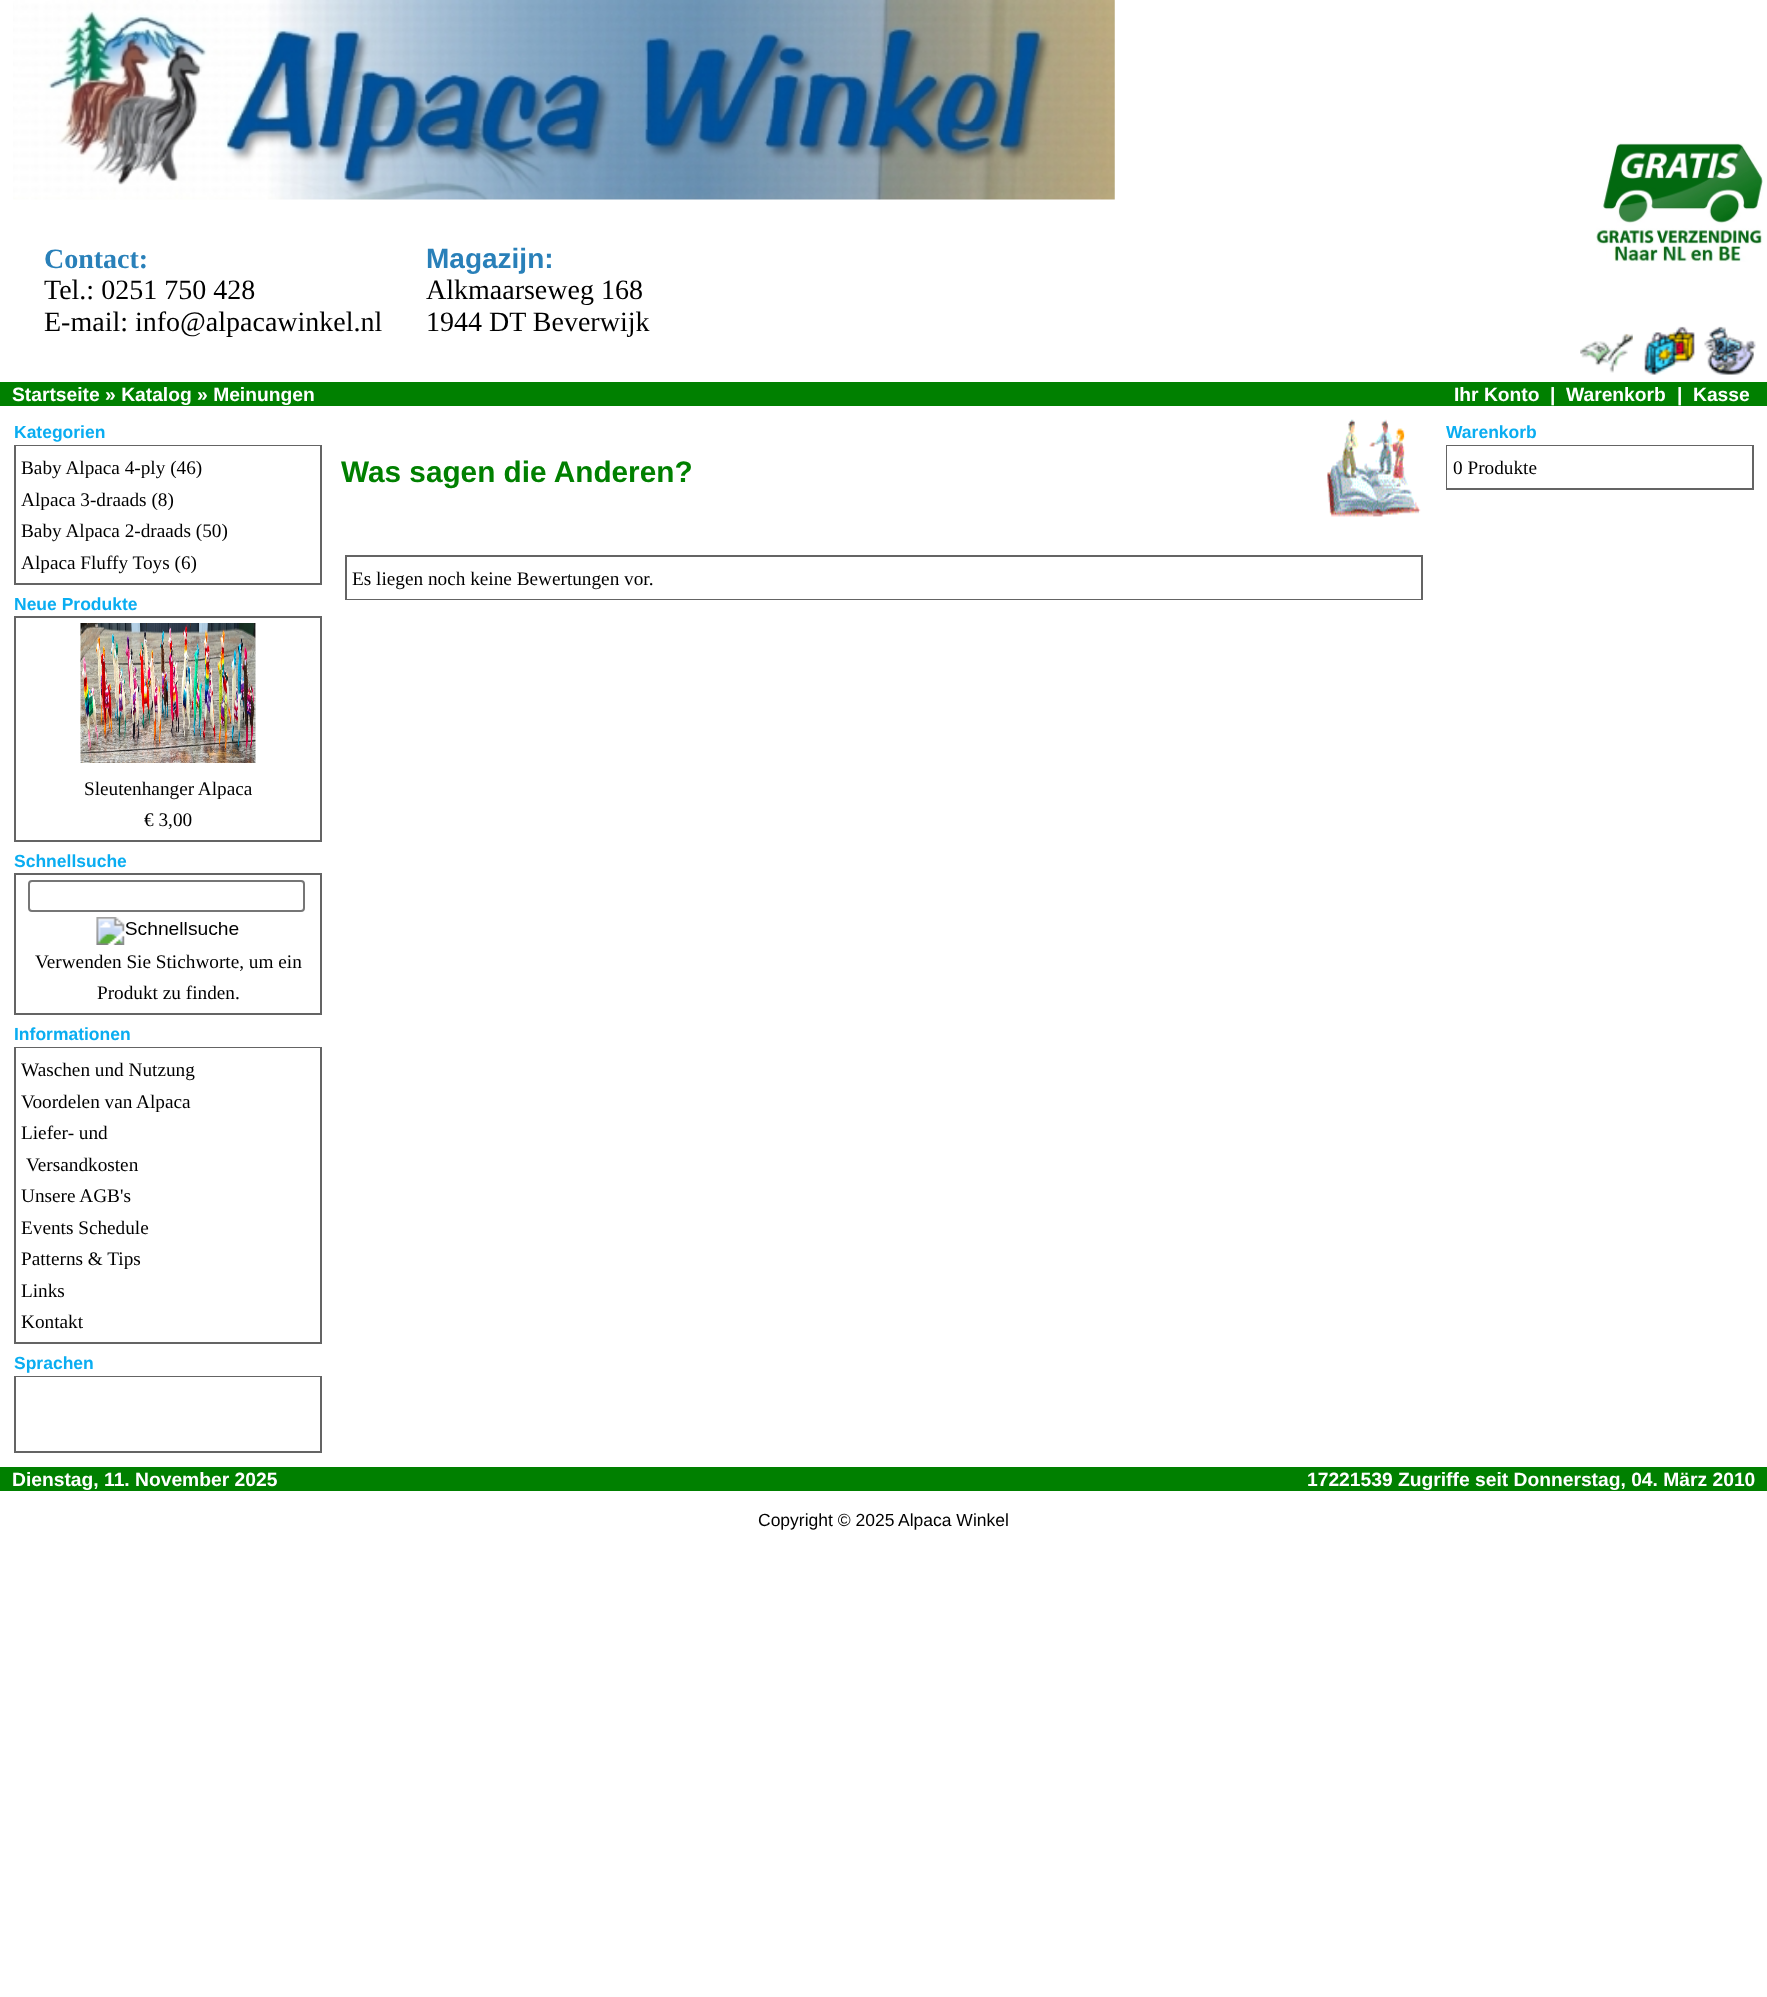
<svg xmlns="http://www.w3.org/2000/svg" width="1767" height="1997">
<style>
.a{font:bold 28px Liberation Serif;fill:#2980b9}
.b{font:28px Liberation Serif;fill:#000}
.c{font:bold 28px Liberation Sans;fill:#2980b9}
.d{font:bold 19.25px Liberation Sans;fill:#fff}
.e{font:bold 17.5px Liberation Sans;fill:#0aadf1}
.f{font:19.25px Liberation Serif;fill:#000}
.g{font:bold 29.75px Liberation Sans;fill:#008000}
.h{font:17.5px Liberation Sans;fill:#000}
</style>
<rect width="100%" height="100%" fill="#fff"/>
<image href="1.png" x="1596" y="143" width="167" height="119"/>
<image href="2.png" x="13" y="0" width="1102" height="200"/>
<image href="3.png" x="1580" y="333" width="53" height="40"/>
<image href="4.png" x="1644" y="326" width="51" height="49"/>
<image href="5.png" x="1704" y="326" width="52" height="49"/>
<path fill="#008000" d="M0 382h1767v24H0z"/>
<path fill="#646464" d="M14 445h308v140H14z"/>
<path fill="#fff" d="M16 446h304v137H16z"/>
<path fill="#646464" d="M14 616h308v226H14z"/>
<path fill="#fff" d="M16 618h304v222H16z"/>
<image href="6.png" x="80" y="623" width="176" height="140"/>
<path fill="#646464" d="M14 873h308v142H14z"/>
<path fill="#fff" d="M16 875h304v138H16z"/>
<rect fill="none" stroke="#767676" stroke-width="2" x="29" y="881" width="275" height="30" rx="3"/>
<image href="7.png" x="96" y="917" width="143" height="28"/>
<path fill="#646464" d="M14 1047h308v297H14z"/>
<path fill="#fff" d="M16 1048h304v294H16z"/>
<path fill="#646464" d="M14 1376h308v77H14z"/>
<path fill="#fff" d="M16 1377h304v74H16z"/>
<path fill="#646464" d="M1446 445h308v45H1446z"/>
<path fill="#fff" d="M1447 446h305v42H1447z"/>
<image href="8.png" x="1327" y="419" width="94" height="98"/>
<path fill="#646464" d="M345 555h1078v45H345z"/>
<path fill="#fff" d="M347 557h1074v42H347z"/>
<path fill="#008000" d="M0 1467h1767v24H0z"/>
<text class="a" x="44" y="268">Contact:</text>
<text class="b" x="44" y="299">Tel.: 0251 750 428</text>
<text class="b" x="44" y="331">E-mail: info@alpacawinkel.nl</text>
<text class="c" x="426" y="268">Magazijn:</text>
<text class="b" x="426" y="299">Alkmaarseweg 168</text>
<text class="b" x="426" y="331">1944 DT Beverwijk</text>
<text class="d" x="12" y="401">Startseite » Katalog » Meinungen</text>
<text class="d" x="1454" y="401">Ihr Konto</text>
<text class="d" x="1550" y="401">|</text>
<text class="d" x="1566" y="401">Warenkorb</text>
<text class="d" x="1677" y="401">|</text>
<text class="d" x="1693" y="401">Kasse</text>
<text class="e" x="14" y="438">Kategorien</text>
<text class="f" x="21" y="474">Baby Alpaca 4-ply (46)</text>
<text class="f" x="21" y="506">Alpaca 3-draads (8)</text>
<text class="f" x="21" y="537">Baby Alpaca 2-draads (50)</text>
<text class="f" x="21" y="569">Alpaca Fluffy Toys (6)</text>
<text class="e" x="14" y="610">Neue Produkte</text>
<text class="f" x="84" y="795">Sleutenhanger Alpaca</text>
<text class="f" x="144" y="826">€ 3,00</text>
<text class="e" x="14" y="867">Schnellsuche</text>
<text class="f" x="35" y="968">Verwenden Sie Stichworte, um ein</text>
<text class="f" x="97" y="999">Produkt zu finden.</text>
<text class="e" x="14" y="1040">Informationen</text>
<text class="f" x="21" y="1076">Waschen und Nutzung</text>
<text class="f" x="21" y="1108">Voordelen van Alpaca</text>
<text class="f" x="21" y="1139">Liefer- und</text>
<text class="f" x="26" y="1171">Versandkosten</text>
<text class="f" x="21" y="1202">Unsere AGB's</text>
<text class="f" x="21" y="1234">Events Schedule</text>
<text class="f" x="21" y="1265">Patterns &amp; Tips</text>
<text class="f" x="21" y="1297">Links</text>
<text class="f" x="21" y="1328">Kontakt</text>
<text class="e" x="14" y="1369">Sprachen</text>
<text class="e" x="1446" y="438">Warenkorb</text>
<text class="f" x="1453" y="474">0 Produkte</text>
<text class="g" x="341" y="482">Was sagen die Anderen?</text>
<text class="f" x="352" y="585">Es liegen noch keine Bewertungen vor.</text>
<text class="d" x="12" y="1486">Dienstag, 11. November 2025</text>
<text class="d" x="1307" y="1486">17221539 Zugriffe seit Donnerstag, 04. März 2010</text>
<text class="h" x="758" y="1526">Copyright © 2025</text>
<text class="h" x="898" y="1526">Alpaca Winkel</text>
</svg>
